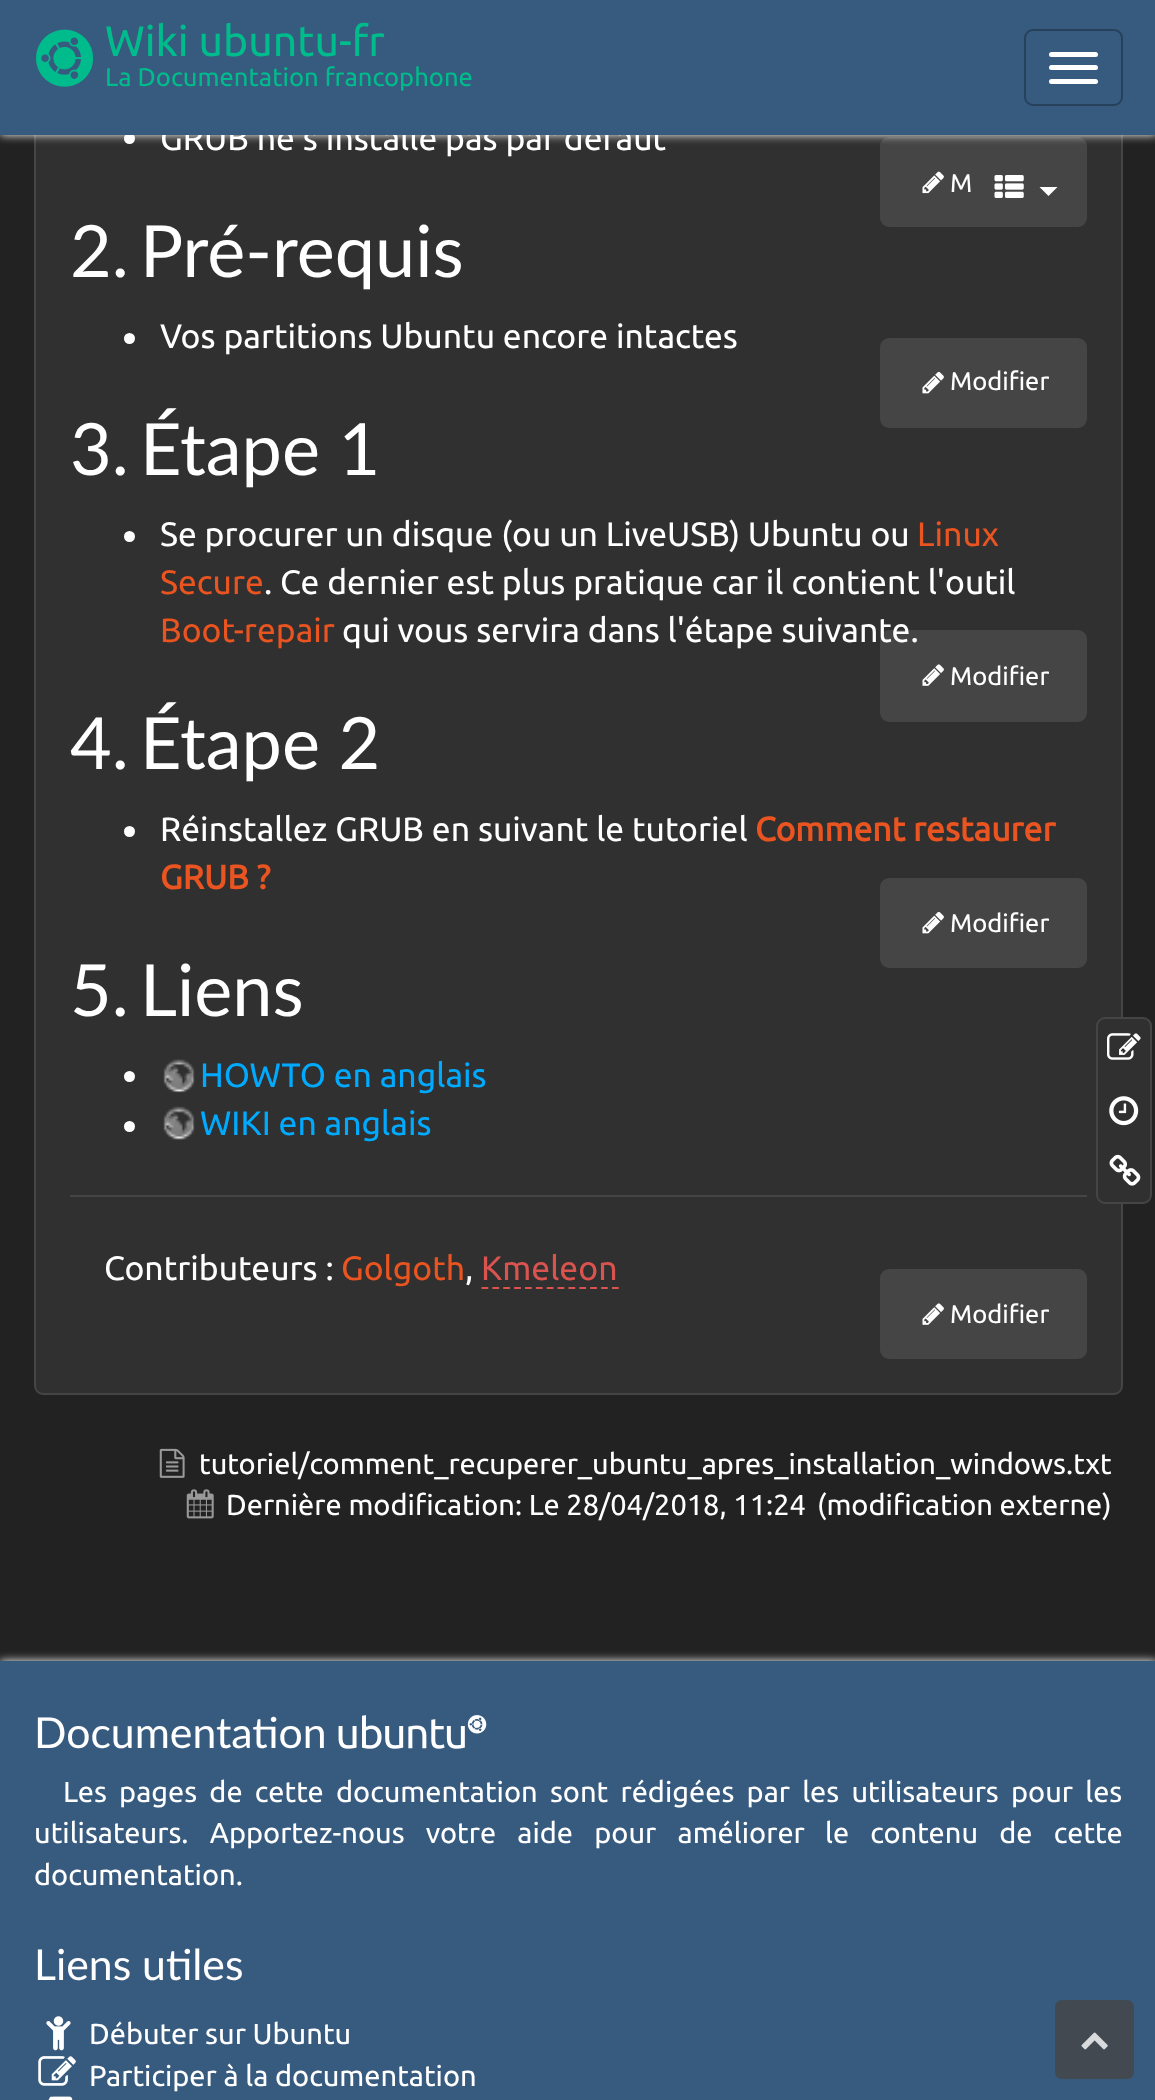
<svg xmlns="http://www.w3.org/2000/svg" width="1155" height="2100">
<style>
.a{font:33.75px Ubuntu;fill:#fff}
.b{font:25.6px Ubuntu;fill:#00bc8c}
.c{font:42.75px Ubuntu;fill:#00bc8c}
.d{font:25.5px Ubuntu;fill:#fff}
.e{font:72px Lato;fill:#fff}
.f{font:33.75px Ubuntu;fill:#e95420}
.g{font:bold 33.75px Ubuntu;fill:#e95420}
.h{font:33.75px Ubuntu;fill:#0af}
.i{font:33.75px Ubuntu;fill:#d9534f}
.j{font:29px Ubuntu;fill:#fff}
.k{font:42.75px Lato;fill:#fff}
</style>
<rect width="100%" height="100%" fill="#222"/>
<rect fill="#303030" stroke="#464545" stroke-width="2" x="35" y="-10" width="1087" height="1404" rx="8"/>
<circle fill="#fff" cx="129.5" cy="138.5" r="5.5"/>
<rect fill="#464545" stroke="#464545" stroke-width="5" x="882.5" y="139.5" width="202" height="85" rx="6.5"/>
<path fill="#fff" filter="blur(5px)" d="M0 0h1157v135H0z"/>
<image href="2.png" x="922" y="171" width="22" height="23"/>
<circle fill="#fff" cx="129.5" cy="338.5" r="5.5"/>
<rect fill="#464545" stroke="#464545" stroke-width="5" x="882.5" y="340.5" width="202" height="85" rx="6.5"/>
<image href="3.png" x="922" y="371" width="22" height="23"/>
<circle fill="#fff" cx="129.5" cy="536.5" r="5.5"/>
<rect fill="#464545" stroke="#464545" stroke-width="5" x="882.5" y="632.5" width="202" height="87" rx="6.5"/>
<image href="4.png" x="922" y="664" width="22" height="22"/>
<circle fill="#fff" cx="129.5" cy="831.5" r="5.5"/>
<rect fill="#464545" stroke="#464545" stroke-width="5" x="882.5" y="880.5" width="202" height="85" rx="6.5"/>
<image href="3.png" x="922" y="911" width="22" height="23"/>
<circle fill="#fff" cx="129.5" cy="1076.5" r="5.5"/>
<image href="5.png" x="163" y="1059" width="32" height="34"/>
<circle fill="#fff" cx="129.5" cy="1126.5" r="5.5"/>
<image href="6.png" x="163" y="1106" width="32" height="34"/>
<path fill="#464545" d="M70 1195h1017v2H70z"/>
<path fill="none" stroke="#d9534f" stroke-width="2.2" stroke-dasharray="6.75 4.12" d="M481.5 1288h137.5"/>
<rect fill="#464545" stroke="#464545" stroke-width="5" x="882.5" y="1271.5" width="202" height="85" rx="6.5"/>
<image href="4.png" x="922" y="1303" width="22" height="22"/>
<image href="7.png" x="994" y="175" width="30" height="23"/>
<path fill="#fff" d="M1039.5 187h18l-9 9z"/>
<rect fill="#303030" stroke="#464545" stroke-width="2" x="1097" y="1018" width="54" height="185" rx="8"/>
<image href="8.png" x="1107" y="1033" width="34" height="27"/>
<image href="9.png" x="1109" y="1096" width="30" height="30"/>
<image href="10.png" x="1109" y="1154" width="32" height="32"/>
<image href="11.png" x="159" y="1448" width="26" height="30"/>
<image href="12.png" x="186" y="1489" width="28" height="30"/>
<path fill="#fff" filter="blur(5px)" d="M0 1661h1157v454H0z"/>
<path fill="#375a7f" d="M0 1661h1155v439H0z"/>
<image href="13.png" x="338" y="1715" width="149" height="34"/>
<image href="14.png" x="46" y="2016" width="25" height="35"/>
<image href="15.png" x="38" y="2056" width="38" height="30"/>
<image href="16.png" x="48" y="2096" width="25" height="4"/>
<rect fill="#434951" stroke="#434951" stroke-width="5" x="1057.5" y="2002.5" width="74" height="74" rx="4.5"/>
<image href="17.png" x="1081" y="2032" width="27" height="18"/>
<text class="a" x="160" y="150">GRUB ne s'installe pas par défaut</text>
<path fill="#375a7f" d="M0 0h1155v135H0z"/>
<rect fill="none" stroke="#28415b" stroke-width="2" x="1025" y="30" width="97" height="75" rx="8"/>
<rect fill="#fff" x="1049" y="79" width="49" height="5" rx="2.5"/>
<rect fill="#fff" x="1049" y="65" width="49" height="5" rx="2.5"/>
<rect fill="#fff" x="1049" y="52" width="49" height="5" rx="2.5"/>
<text class="b" x="105" y="86">La Documentation francophone</text>
<text class="c" x="105" y="56">Wiki ubuntu-fr</text>
<image href="1.png" x="36" y="29" width="57" height="58"/>
<text class="d" x="950" y="192">M</text>
<text class="e" x="70" y="277">2.</text>
<text class="e" x="140" y="277">Pré-requis</text>
<text class="a" x="160" y="348">Vos partitions Ubuntu encore intactes</text>
<text class="d" x="950" y="390">Modifier</text>
<text class="e" x="70" y="475">3.</text>
<text class="e" x="140" y="475">Étape 1</text>
<text class="a" x="160" y="546">Se procurer un disque (ou un LiveUSB) Ubuntu ou</text>
<text class="f" x="917" y="546">Linux</text>
<text class="f" x="160" y="594">Secure</text>
<text class="a" x="264" y="594">. Ce dernier est plus pratique car il contient l'outil</text>
<text class="f" x="160" y="642">Boot-repair</text>
<text class="a" x="342" y="642">qui vous servira dans l'étape suivante.</text>
<text class="d" x="950" y="685">Modifier</text>
<text class="e" x="70" y="769">4.</text>
<text class="e" x="140" y="769">Étape 2</text>
<text class="a" x="160" y="841">Réinstallez GRUB en suivant le tutoriel</text>
<text class="g" x="755" y="841">Comment restaurer</text>
<text class="g" x="160" y="889">GRUB ?</text>
<text class="d" x="950" y="932">Modifier</text>
<text class="e" x="70" y="1016">5.</text>
<text class="e" x="140" y="1016">Liens</text>
<text class="h" x="200" y="1087">HOWTO en anglais</text>
<text class="h" x="200" y="1135">WIKI en anglais</text>
<text class="a" x="104" y="1280">Contributeurs :</text>
<text class="f" x="341" y="1280">Golgoth</text>
<text class="a" x="465" y="1280">,</text>
<text class="i" x="481" y="1280">Kmeleon</text>
<text class="d" x="950" y="1323">Modifier</text>
<text class="j" x="199" y="1474">tutoriel/comment_recuperer_ubuntu_apres_installation_windows.txt</text>
<text class="j" x="226" y="1515">Dernière modification: Le 28/04/2018, 11:24</text>
<text class="j" x="817" y="1515">(modification externe)</text>
<text class="k" x="34" y="1748">Documentation</text>
<text class="j" x="63" y="1802" word-spacing="5.5">Les pages de cette documentation sont rédigées par les utilisateurs</text>
<text class="j" x="1011" y="1802" word-spacing="5.5">pour les</text>
<text class="j" x="34" y="1843" word-spacing="14.5">utilisateurs. Apportez-nous votre aide pour améliorer</text>
<text class="j" x="825" y="1843" word-spacing="14.5">le contenu de cette</text>
<text class="j" x="34" y="1885">documentation.</text>
<text class="k" x="34" y="1980">Liens utiles</text>
<text class="j" x="89" y="2044">Débuter sur Ubuntu</text>
<text class="j" x="89" y="2086">Participer à la documentation</text>
</svg>
